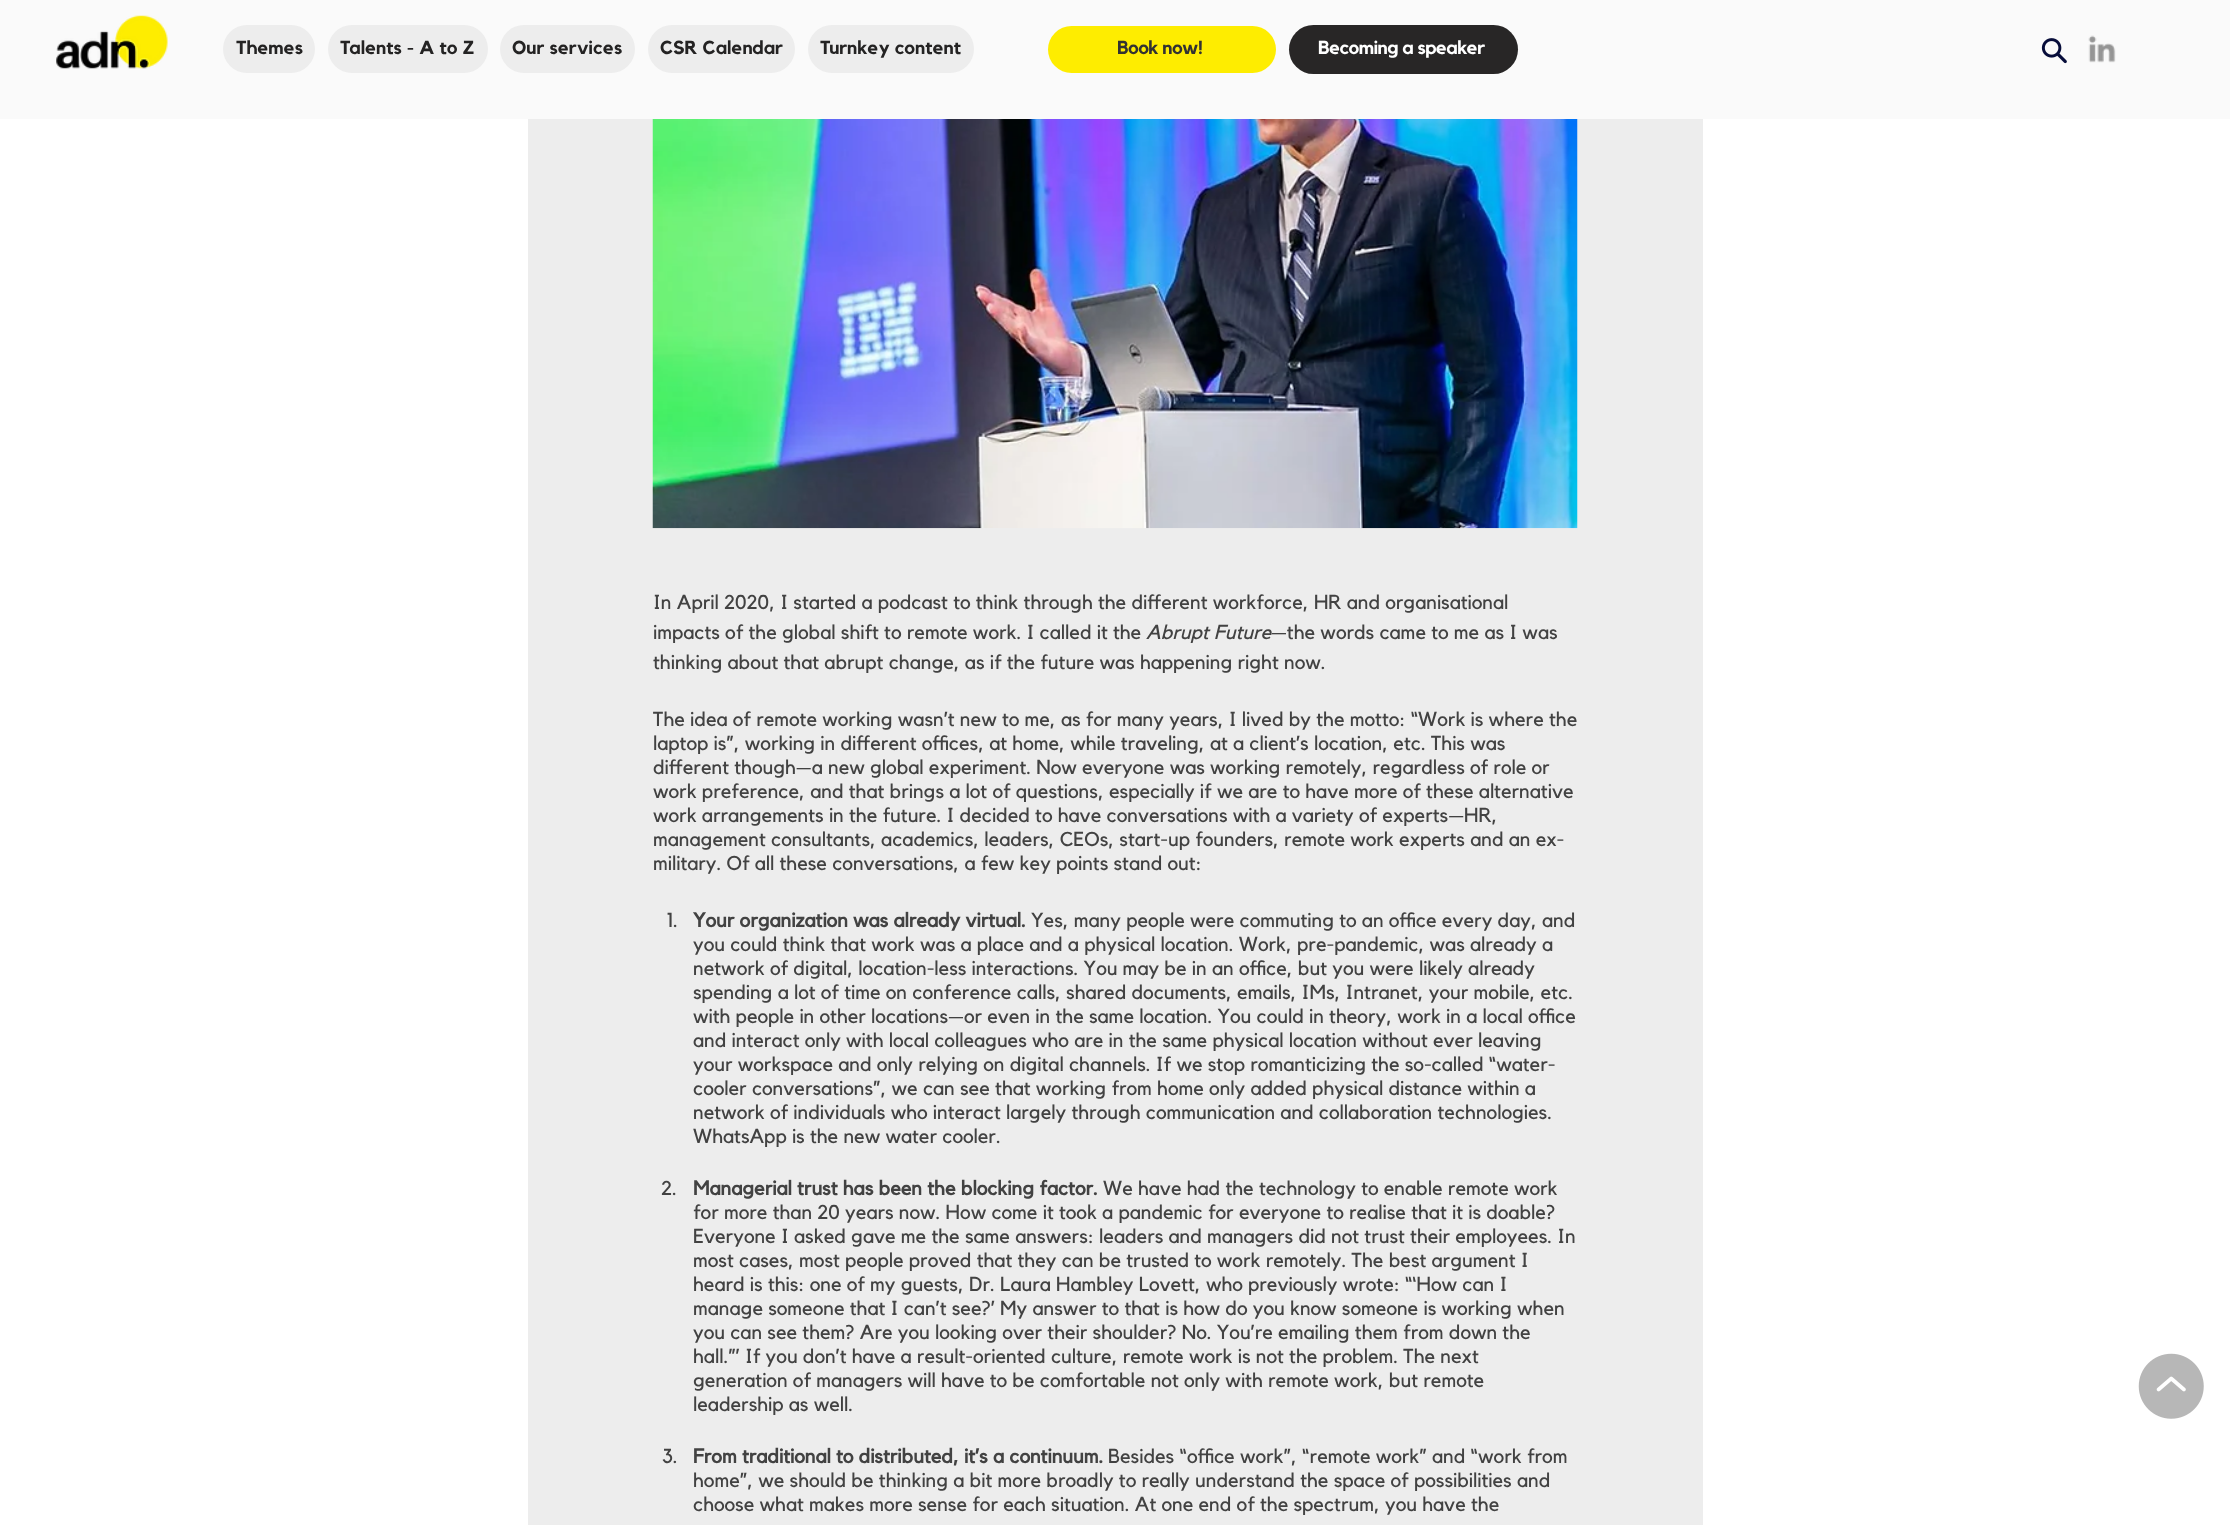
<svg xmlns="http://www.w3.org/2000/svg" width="2230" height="1525">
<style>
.a{font:bold 18.75px 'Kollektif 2';fill:#242323}
.b{font:bold 18.75px 'Kollektif 2';letter-spacing:-0.6px;fill:#323232}
.c{font:bold 18.75px 'Kollektif 2';letter-spacing:-0.6px;fill:#fff}
.d{font:20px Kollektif;fill:#424242}
.e{font:italic 20px Kollektif;fill:#424242}
.f{font:bold 20px Kollektif;fill:#424242}
</style>
<defs>
<clipPath id="clip1"><path d="M1118 39h85v22H1118z"/></clipPath>
</defs>
<rect width="100%" height="100%" fill="#fff"/>
<path fill="#fafafa" d="M0 0h2230v119H0z"/>
<image href="1.png" x="56" y="15" width="112" height="54"/>
<rect fill="#ededed" x="223" y="25" width="92" height="48" rx="24"/>
<rect fill="#ededed" x="328" y="25" width="160" height="48" rx="24"/>
<rect fill="#ededed" x="500" y="25" width="135" height="48" rx="24"/>
<rect fill="#ededed" x="648" y="25" width="147" height="48" rx="24"/>
<rect fill="#ededed" x="808" y="25" width="166" height="48" rx="24"/>
<rect fill="#feed00" x="1048" y="26" width="228" height="47" rx="23.5"/>
<rect fill="#282626" x="1289" y="25" width="229" height="49" rx="24.5"/>
<image href="2.png" x="2041" y="38" width="26" height="26"/>
<image href="3.png" x="2088" y="35" width="28" height="28"/>
<path fill="#ededed" d="M528 119h1175v1406H528z"/>
<image href="4.png" x="652" y="119" width="926" height="410"/>
<image href="5.png" x="2138" y="1353" width="66" height="66"/>
<text class="a" x="236" y="54">Themes</text>
<text class="a" x="340" y="54">Talents - A to Z</text>
<text class="a" x="512" y="54">Our services</text>
<text class="a" x="660" y="54">CSR Calendar</text>
<text class="a" x="820" y="54">Turnkey content</text>
<g clip-path="url(#clip1)">
<text class="b" x="1117" y="54">Book now!</text>
</g>
<text class="c" x="1318" y="54">Becoming a speaker</text>
<text class="d" x="653" y="609">In April 2020, I started a podcast to think through the different workforce, HR and organisational</text>
<text class="d" x="653" y="639">impacts of the global shift to remote work. I called it the</text>
<text class="e" x="1146" y="639">Abrupt Future</text>
<text class="d" x="1271" y="639">—the words came to me as I was</text>
<text class="d" x="653" y="669">thinking about that abrupt change, as if the future was happening right now.</text>
<text class="d" x="653" y="726">The idea of remote working wasn’t new to me, as for many years, I lived by the motto: “Work is where the</text>
<text class="d" x="653" y="750">laptop is”, working in different offices, at home, while traveling, at a client’s location, etc. This was</text>
<text class="d" x="653" y="774">different though—a new global experiment. Now everyone was working remotely, regardless of role or</text>
<text class="d" x="653" y="798">work preference, and that brings a lot of questions, especially if we are to have more of these alternative</text>
<text class="d" x="653" y="822">work arrangements in the future. I decided to have conversations with a variety of experts—HR,</text>
<text class="d" x="653" y="846">management consultants, academics, leaders, CEOs, start-up founders, remote work experts and an ex-</text>
<text class="d" x="653" y="870">military. Of all these conversations, a few key points stand out:</text>
<text class="d" x="667" y="927">1.</text>
<text class="f" x="693" y="927">Your organization was already virtual.</text>
<text class="d" x="1031" y="927">Yes, many people were commuting to an office every day, and</text>
<text class="d" x="693" y="951">you could think that work was a place and a physical location. Work, pre-pandemic, was already a</text>
<text class="d" x="693" y="975">network of digital, location-less interactions. You may be in an office, but you were likely already</text>
<text class="d" x="693" y="999">spending a lot of time on conference calls, shared documents, emails, IMs, Intranet, your mobile, etc.</text>
<text class="d" x="693" y="1023">with people in other locations—or even in the same location. You could in theory, work in a local office</text>
<text class="d" x="693" y="1047">and interact only with local colleagues who are in the same physical location without ever leaving</text>
<text class="d" x="693" y="1071">your workspace and only relying on digital channels. If we stop romanticizing the so-called “water-</text>
<text class="d" x="693" y="1095">cooler conversations”, we can see that working from home only added physical distance within a</text>
<text class="d" x="693" y="1119">network of individuals who interact largely through communication and collaboration technologies.</text>
<text class="d" x="693" y="1143">WhatsApp is the new water cooler.</text>
<text class="d" x="661" y="1195">2.</text>
<text class="f" x="693" y="1195">Managerial trust has been the blocking factor.</text>
<text class="d" x="1103" y="1195">We have had the technology to enable remote work</text>
<text class="d" x="693" y="1219">for more than 20 years now. How come it took a pandemic for everyone to realise that it is doable?</text>
<text class="d" x="693" y="1243">Everyone I asked gave me the same answers: leaders and managers did not trust their employees. In</text>
<text class="d" x="693" y="1267">most cases, most people proved that they can be trusted to work remotely. The best argument I</text>
<text class="d" x="693" y="1291">heard is this: one of my guests, Dr. Laura Hambley Lovett, who previously wrote: “‘How can I</text>
<text class="d" x="693" y="1315">manage someone that I can’t see?’ My answer to that is how do you know someone is working when</text>
<text class="d" x="693" y="1339">you can see them? Are you looking over their shoulder? No. You’re emailing them from down the</text>
<text class="d" x="693" y="1363">hall.”’ If you don’t have a result-oriented culture, remote work is not the problem. The next</text>
<text class="d" x="693" y="1387">generation of managers will have to be comfortable not only with remote work, but remote</text>
<text class="d" x="693" y="1411">leadership as well.</text>
<text class="d" x="662" y="1463">3.</text>
<text class="f" x="693" y="1463">From traditional to distributed, it’s a continuum.</text>
<text class="d" x="1108" y="1463">Besides “office work”, “remote work” and “work from</text>
<text class="d" x="693" y="1487">home”, we should be thinking a bit more broadly to really understand the space of possibilities and</text>
<text class="d" x="693" y="1511">choose what makes more sense for each situation. At one end of the spectrum, you have the</text>
</svg>
